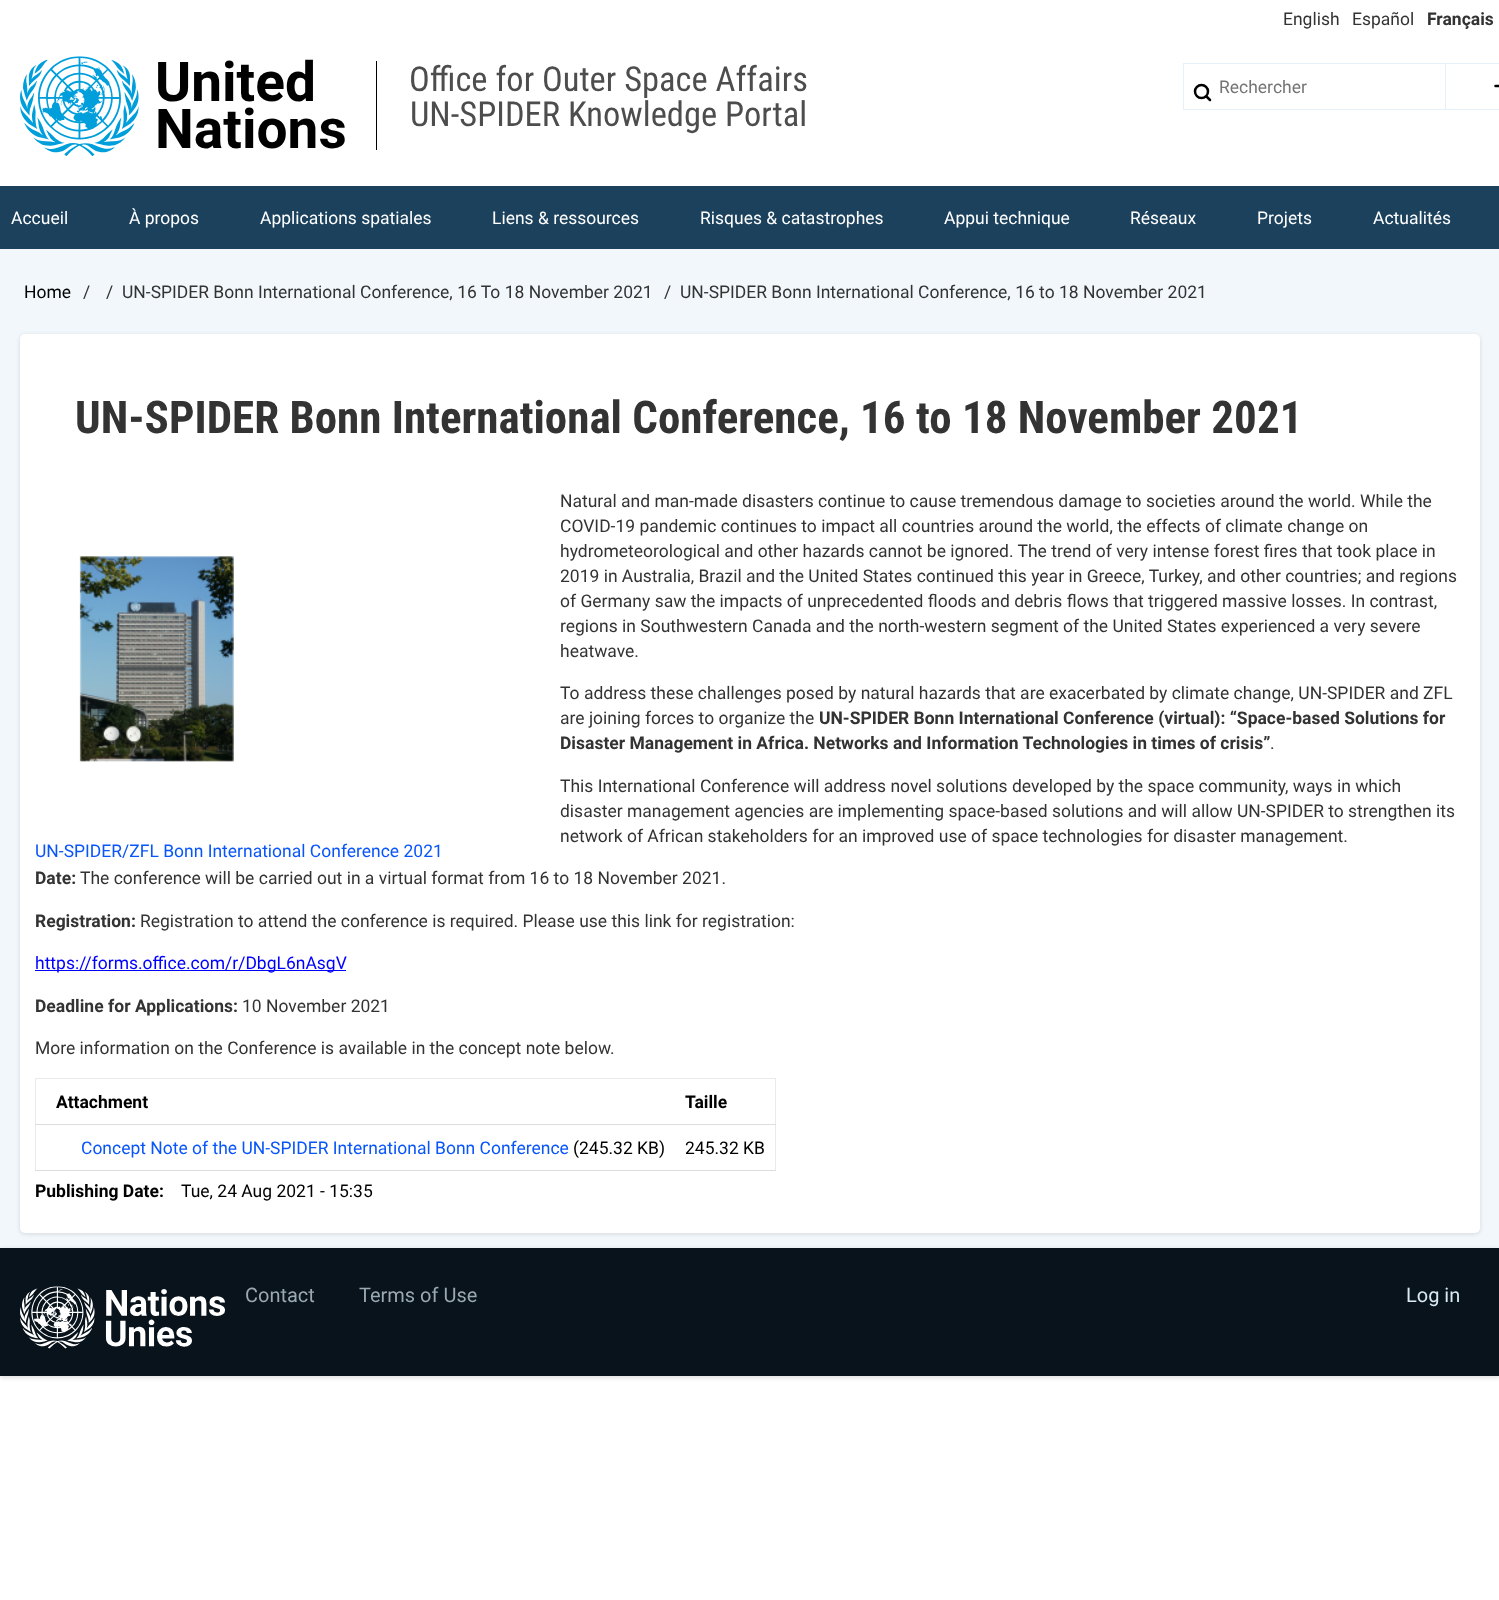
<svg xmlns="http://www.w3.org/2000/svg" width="1499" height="1600">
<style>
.a{font:17.5px Roboto;fill:#333}
.b{font:bold 17.5px Roboto;fill:#333}
.c{font:bold 55px Roboto;fill:#000}
.d{font:34.5px Roboto Condensed;fill:#4d4d4d}
.e{font:17.5px Roboto;fill:#757575}
.f{font:17.5px Roboto;fill:#fff}
.g{font:17.5px Roboto;fill:#000}
.h{font:bold 45px Roboto Condensed;fill:#333}
.i{font:17.5px Roboto;fill:#00f}
.j{font:17.5px Roboto;fill:#0855fa}
.k{font:bold 17.5px Roboto;fill:#000}
.l{font:20px Roboto;fill:#9aa8b3}
.m{font:20px Roboto;fill:#d8e8f4}
</style>
<rect width="100%" height="100%" fill="#fff"/>
<image href="1.png" x="20" y="56" width="119" height="100"/>
<path fill="#000" d="M376 61h1v89H376z"/>
<circle fill="none" stroke="#000" stroke-width="2.5" cx="1201.5" cy="91.5" r="6.5"/>
<path fill="none" stroke="#000" stroke-width="2.5" stroke-linecap="round" stroke-linejoin="round" d="M1210 100l-3.5-3.5"/>
<path fill="#e5f0f8" d="M1183 63h262v1H1183z"/>
<path fill="#e5f0f8" d="M1183 109h262v1H1183z"/>
<path fill="#e5f0f8" d="M1183 63h1v47H1183z"/>
<path fill="none" stroke="#000" stroke-width="2.5" stroke-linecap="round" stroke-linejoin="round" d="M1495.5 86h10.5m-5-5.5l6 5.5l-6 6"/>
<path fill="none" stroke="#e5f0f8" d="M1445.5 63.5h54v46H1445.5z"/>
<path fill="#1b415d" d="M0 186h1499v63H0z"/>
<path fill="#f2f7fb" d="M0 249h1499v999H0z"/>
<rect fill="#0000001f" filter="blur(2px)" x="20" y="335" width="1460" height="899" rx="5"/>
<rect fill="#fff" x="20" y="334" width="1460" height="899" rx="5"/>
<path fill="#00f" d="M35 970h311v1H35z"/>
<image href="2.png" x="79" y="556" width="155" height="206"/>
<path fill="#eaeaea" d="M35 1078h741v1H35z"/>
<path fill="#eaeaea" d="M775 1078h1v93H775z"/>
<path fill="#eaeaea" d="M35 1078h1v93H35z"/>
<path fill="#ddd" d="M35 1124h741v1H35z"/>
<path fill="#ddd" d="M35 1170h741v1H35z"/>
<path fill="#0000001f" filter="blur(2px)" d="M0 1249h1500v129H0z"/>
<path fill="#08131b" d="M0 1248h1499v128H0z"/>
<image href="3.png" x="20" y="1286" width="205" height="63"/>
<text class="a" x="1283" y="25">English</text>
<text class="a" x="1352" y="25">Español</text>
<text class="b" x="1427" y="25">Français</text>
<text class="c" x="155" y="101">United</text>
<text class="c" x="155" y="148">Nations</text>
<text class="d" x="409" y="91">Office for Outer Space Affairs</text>
<text class="d" x="410" y="126">UN-SPIDER Knowledge Portal</text>
<text class="e" x="1219" y="93">Rechercher</text>
<text class="f" x="11" y="224">Accueil</text>
<text class="f" x="129" y="224">À propos</text>
<text class="f" x="260" y="224">Applications spatiales</text>
<text class="f" x="492" y="224">Liens &amp; ressources</text>
<text class="f" x="700" y="224">Risques &amp; catastrophes</text>
<text class="f" x="944" y="224">Appui technique</text>
<text class="f" x="1130" y="224">Réseaux</text>
<text class="f" x="1257" y="224">Projets</text>
<text class="f" x="1373" y="224">Actualités</text>
<text class="g" x="24" y="298">Home</text>
<text class="a" x="83" y="298">/</text>
<text class="a" x="106" y="298">/</text>
<text class="a" x="122" y="298">UN-SPIDER Bonn International Conference, 16 To 18 November 2021</text>
<text class="a" x="664" y="298">/</text>
<text class="a" x="680" y="298">UN-SPIDER Bonn International Conference, 16 to 18 November 2021</text>
<text class="h" x="75" y="433">UN-SPIDER Bonn International Conference, 16 to 18 November 2021</text>
<text class="a" x="560" y="507">Natural and man-made disasters continue to cause tremendous damage to societies around the world. While the</text>
<text class="a" x="560" y="532">COVID-19 pandemic continues to impact all countries around the world, the effects of climate change on</text>
<text class="a" x="560" y="557">hydrometeorological and other hazards cannot be ignored. The trend of very intense forest fires that took place in</text>
<text class="a" x="560" y="582">2019 in Australia, Brazil and the United States continued this year in Greece, Turkey, and other countries; and regions</text>
<text class="a" x="560" y="607">of Germany saw the impacts of unprecedented floods and debris flows that triggered massive losses. In contrast,</text>
<text class="a" x="560" y="632">regions in Southwestern Canada and the north-western segment of the United States experienced a very severe</text>
<text class="a" x="560" y="657">heatwave.</text>
<text class="a" x="560" y="699">To address these challenges posed by natural hazards that are exacerbated by climate change, UN-SPIDER and ZFL</text>
<text class="a" x="560" y="724">are joining forces to organize the</text>
<text class="b" x="819" y="724">UN-SPIDER Bonn International Conference (virtual): “Space-based Solutions for</text>
<text class="b" x="560" y="749">Disaster Management in Africa. Networks and Information Technologies in times of crisis”</text>
<text class="a" x="1270" y="749">.</text>
<text class="a" x="560" y="792">This International Conference will address novel solutions developed by the space community, ways in which</text>
<text class="a" x="560" y="817">disaster management agencies are implementing space-based solutions and will allow UN-SPIDER to strengthen its</text>
<text class="a" x="560" y="842">network of African stakeholders for an improved use of space technologies for disaster management.</text>
<text class="b" x="35" y="884">Date:</text>
<text class="a" x="80" y="884">The conference will be carried out in a virtual format from 16 to 18 November 2021.</text>
<text class="b" x="35" y="927">Registration:</text>
<text class="a" x="140" y="927">Registration to attend the conference is required. Please use this link for registration:</text>
<text class="i" x="35" y="969">https://forms.office.com/r/DbgL6nAsgV</text>
<text class="b" x="35" y="1012">Deadline for Applications:</text>
<text class="a" x="242" y="1012">10 November 2021</text>
<text class="a" x="35" y="1054">More information on the Conference is available in the concept note below.</text>
<text class="j" x="35" y="857">UN-SPIDER/ZFL Bonn International Conference 2021</text>
<text class="k" x="56" y="1108">Attachment</text>
<text class="k" x="685" y="1108">Taille</text>
<text class="j" x="81" y="1154">Concept Note of the UN-SPIDER International Bonn Conference</text>
<text class="g" x="573" y="1154">(245.32 KB)</text>
<text class="g" x="685" y="1154">245.32 KB</text>
<text class="k" x="35" y="1197">Publishing Date:</text>
<text class="g" x="181" y="1197">Tue, 24 Aug 2021 - 15:35</text>
<text class="l" x="245" y="1302">Contact</text>
<text class="l" x="359" y="1302">Terms of Use</text>
<text class="m" x="1406" y="1302">Log in</text>
</svg>
